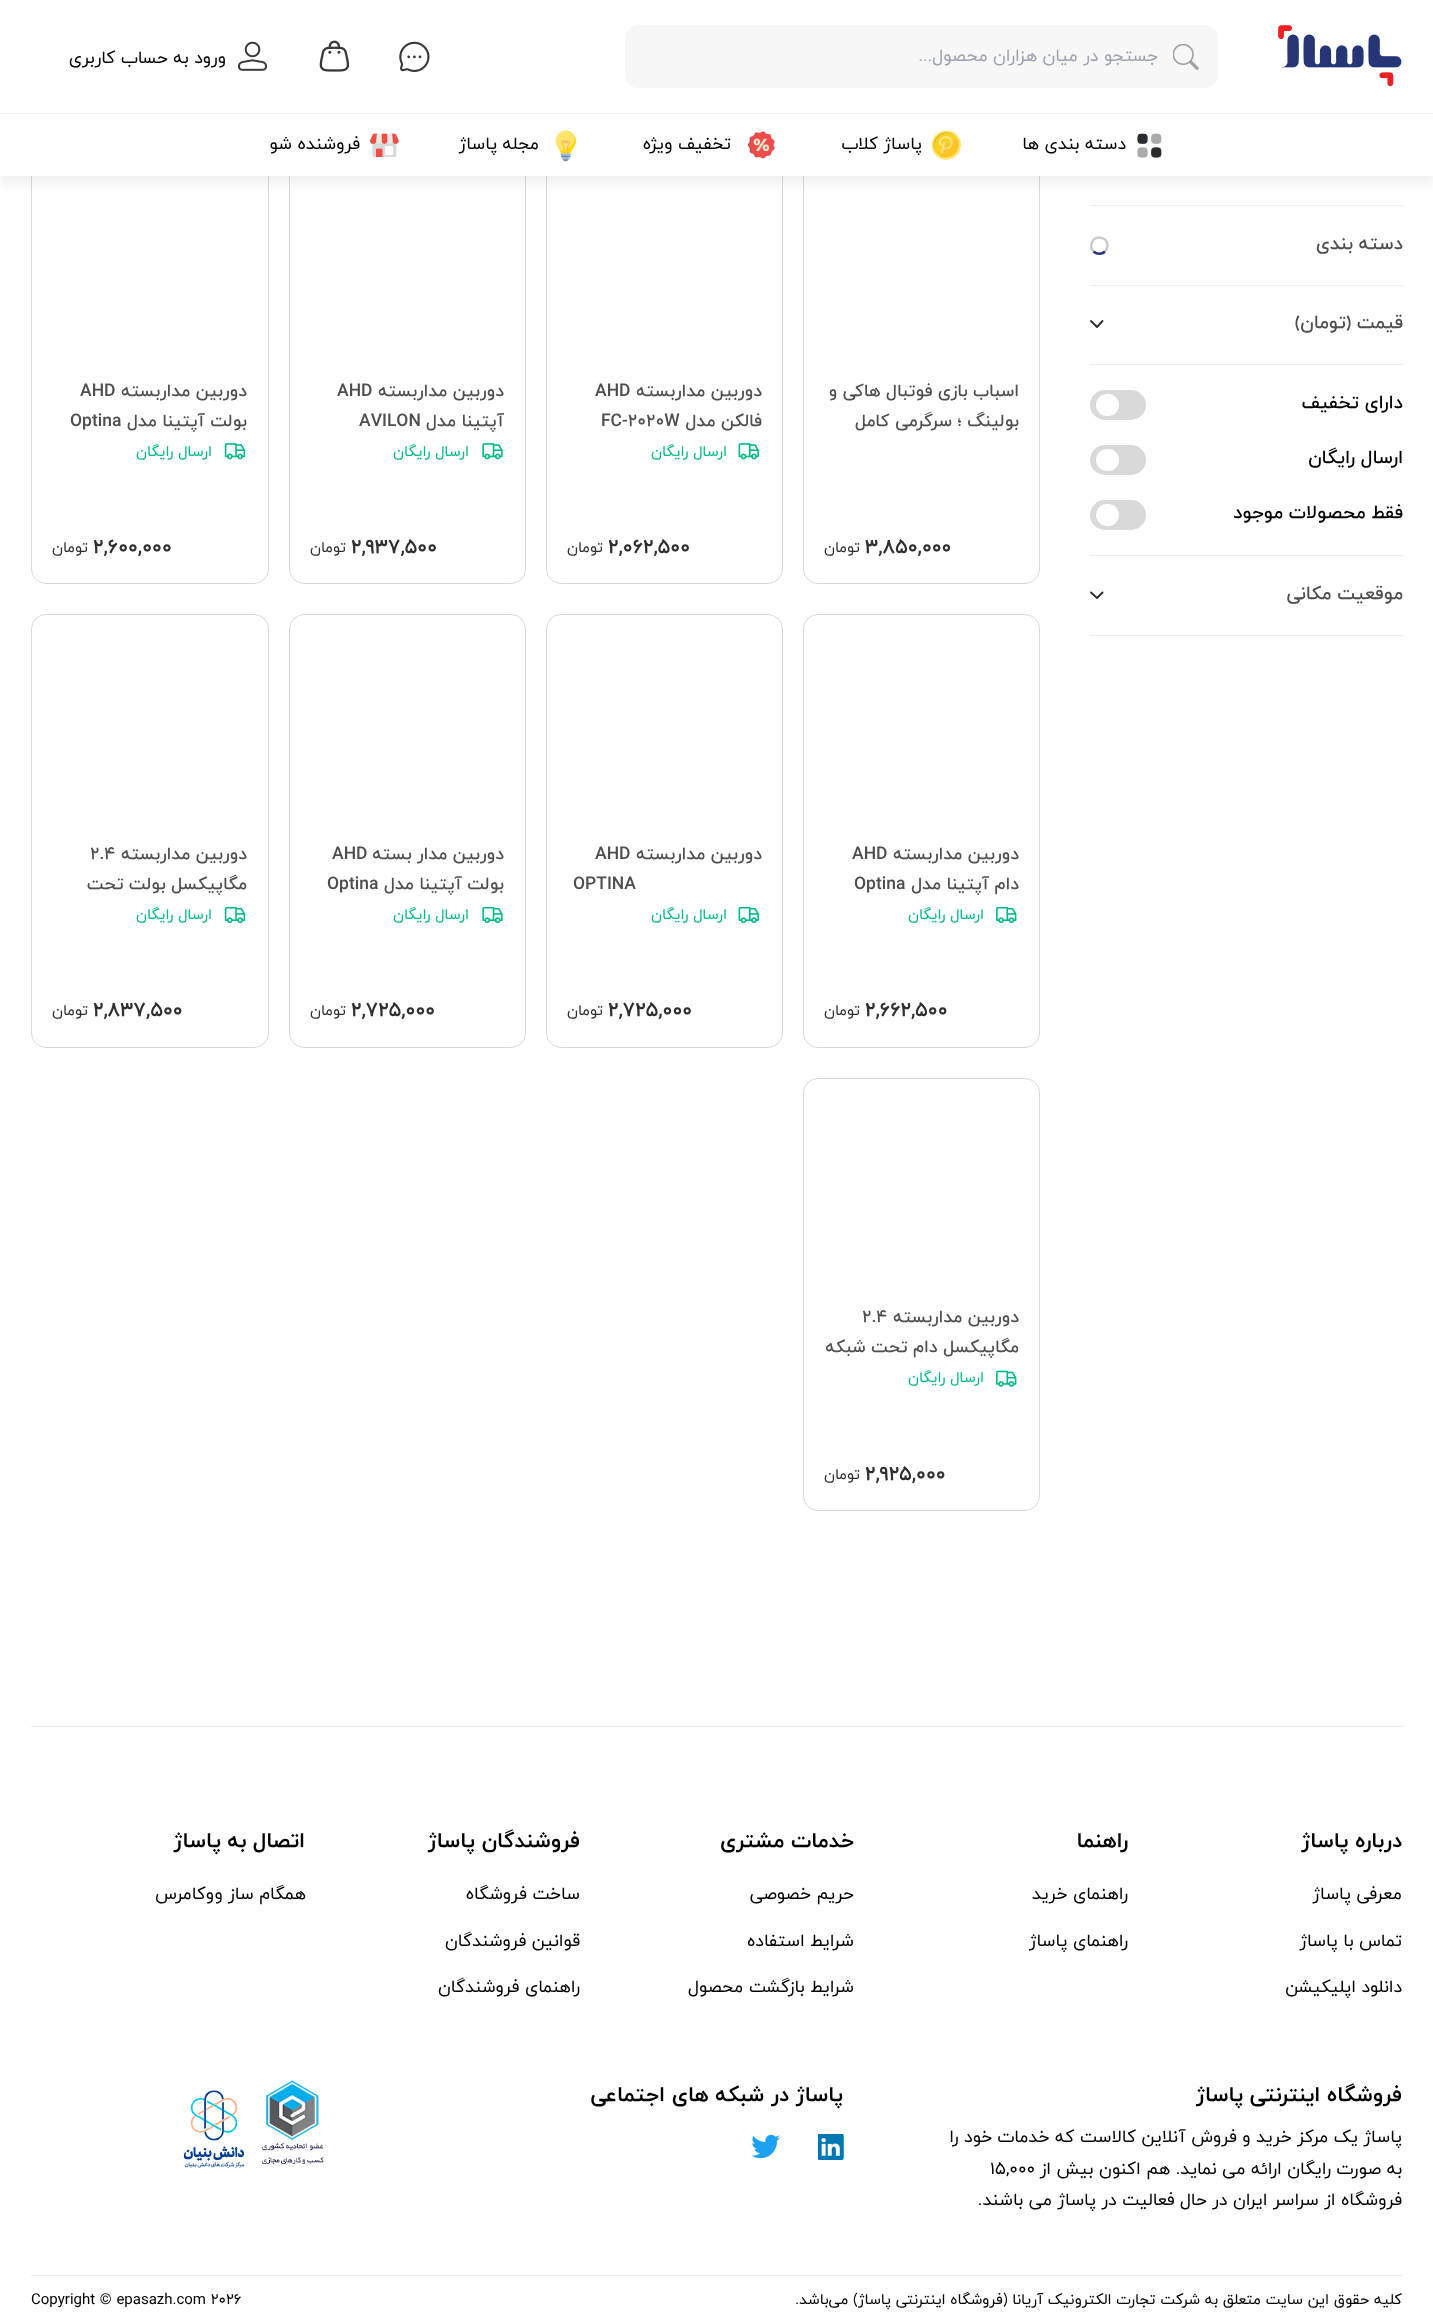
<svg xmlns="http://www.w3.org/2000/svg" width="1433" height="2324">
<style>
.a{font:17.5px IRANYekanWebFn;direction:rtl;fill:#9ca3af}
.b{font:17.5px IRANYekanWebFn;direction:rtl;fill:#000}
.c{font:500 18.75px IRANYekanWebFn;direction:rtl;fill:#4e4e4e}
.d{font:500 18.75px IRANYekanWebFn;direction:rtl;fill:#000}
.e{font:500 17.5px IRANYekanWebFn;direction:rtl;fill:#4e4e4e}
.f{font:bold 20px IRANYekanWebFn;fill:#2f2f2f}
.g{font:15px IRANYekanWebFn;direction:rtl;fill:#2f2f2f}
.h{font:500 17.5px IRANYekanWebFn;fill:#4e4e4e}
.i{font:15px IRANYekanWebFn;direction:rtl;fill:#00ba88}
.j{font:bold 21.25px IRANYekanWebFn;direction:rtl;fill:#000}
.k{font:17.5px IRANYekanWebFn;fill:#000}
.l{font:15px IRANYekanWebFn;direction:rtl;fill:#000}
.m{font:15px IRANYekanWebFn;fill:#000}
</style>
<rect width="100%" height="100%" fill="#fff"/>
<image href="1.png" x="1278" y="25" width="124" height="62"/>
<rect fill="#f7f7f7" x="625" y="25" width="593" height="63" rx="13"/>
<image href="2.png" x="1173" y="44" width="26" height="26"/>
<image href="3.png" x="399" y="41" width="31" height="31"/>
<image href="4.png" x="319" y="40" width="31" height="32"/>
<image href="5.png" x="238" y="41" width="29" height="30"/>
<rect fill="none" stroke="#d9d9d9" x="803.5" y="151.5" width="236" height="432" rx="14.5"/>
<rect fill="none" stroke="#d9d9d9" x="546.5" y="151.5" width="236" height="432" rx="14.5"/>
<rect fill="none" stroke="#d9d9d9" x="289.5" y="151.5" width="236" height="432" rx="14.5"/>
<rect fill="none" stroke="#d9d9d9" x="31.5" y="151.5" width="237" height="432" rx="14.5"/>
<path fill="#0000000d" filter="blur(5px)" d="M0 123h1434v62H0z"/>
<path fill="#efefef" d="M0 113h1433v1H0z"/>
<path fill="#fff" d="M0 119h1433v57H0z"/>
<image href="6.png" x="1137" y="133" width="25" height="25"/>
<image href="7.png" x="931" y="130" width="30" height="30"/>
<image href="8.png" x="747" y="131" width="28" height="28"/>
<image href="9.png" x="555" y="130" width="21" height="32"/>
<image href="10.png" x="370" y="133" width="29" height="24"/>
<path fill="#ededed" d="M1090 205h313v1H1090z"/>
<path fill="#ededed" d="M1090 285h313v1H1090z"/>
<path fill="none" stroke="#263575" stroke-width="2.5" d="M1105 251.5c-3 3-8 3-11.5 0"/>
<path fill="none" stroke="#b4b4b4b3" stroke-width="2.5" d="M1093.5 251.5c-2-2-2.5-5-2-7.5c2-9.5 16-8 16 1.5c0 2.5-1 4.5-2.5 6"/>
<path fill="#ededed" d="M1090 364h313v1H1090z"/>
<path fill="none" stroke="#2f2f2f" stroke-width="1.9" stroke-linecap="round" stroke-linejoin="round" d="M1102.5 321l-5.5 6l-6-6"/>
<path fill="#ededed" d="M1090 555h313v1H1090z"/>
<rect fill="#d9d9d9" x="1090" y="390" width="56" height="30" rx="15"/>
<rect fill="#fff" x="1096" y="394" width="23" height="22" rx="11"/>
<rect fill="#d9d9d9" x="1090" y="445" width="56" height="30" rx="15"/>
<rect fill="#fff" x="1096" y="449" width="23" height="22" rx="11"/>
<rect fill="#d9d9d9" x="1090" y="500" width="56" height="30" rx="15"/>
<rect fill="#fff" x="1096" y="504" width="23" height="22" rx="11"/>
<path fill="#ededed" d="M1090 635h313v1H1090z"/>
<path fill="none" stroke="#2f2f2f" stroke-width="1.9" stroke-linecap="round" stroke-linejoin="round" d="M1102.5 592.5l-5.5 5.5l-6-5.5"/>
<image href="11.png" x="738" y="443" width="21" height="17"/>
<image href="12.png" x="482" y="443" width="21" height="17"/>
<image href="13.png" x="224" y="443" width="22" height="17"/>
<rect fill="none" stroke="#d9d9d9" x="803.5" y="614.5" width="236" height="433" rx="14.5"/>
<image href="14.png" x="996" y="906" width="21" height="18"/>
<rect fill="none" stroke="#d9d9d9" x="546.5" y="614.5" width="236" height="433" rx="14.5"/>
<image href="15.png" x="738" y="906" width="21" height="18"/>
<rect fill="none" stroke="#d9d9d9" x="289.5" y="614.5" width="236" height="433" rx="14.5"/>
<image href="16.png" x="482" y="906" width="21" height="18"/>
<rect fill="none" stroke="#d9d9d9" x="31.5" y="614.5" width="237" height="433" rx="14.5"/>
<image href="17.png" x="224" y="906" width="22" height="18"/>
<rect fill="none" stroke="#d9d9d9" x="803.5" y="1078.5" width="236" height="432" rx="14.5"/>
<image href="18.png" x="996" y="1370" width="21" height="17"/>
<path fill="#ededed" d="M31 1726h1372v1H31z"/>
<image href="19.png" x="818" y="2134" width="26" height="26"/>
<image href="20.png" x="751" y="2134" width="29" height="25"/>
<image href="21.png" x="262" y="2080" width="62" height="84"/>
<image href="22.png" x="183" y="2090" width="62" height="78"/>
<path fill="#ececec" d="M31 2275h1372v1H31z"/>
<text class="a" x="1158" y="61">جستجو در میان هزاران محصول...</text>
<text class="b" x="226" y="63">ورود به حساب کاربری</text>
<text class="b" x="1126" y="149">دسته بندی ها</text>
<text class="b" x="922" y="149">پاساژ کلاب</text>
<text class="b" x="731" y="149">تخفیف ویژه</text>
<text class="b" x="539" y="149">مجله پاساژ</text>
<text class="b" x="360" y="149">فروشنده شو</text>
<text class="c" x="1403" y="249">دسته بندی</text>
<text class="c" x="1403" y="328">قیمت (تومان)</text>
<text class="d" x="1403" y="408">دارای تخفیف</text>
<text class="d" x="1403" y="463">ارسال رایگان</text>
<text class="d" x="1403" y="518">فقط محصولات موجود</text>
<text class="c" x="1403" y="599">موقعیت مکانی</text>
<text class="e" x="1019" y="396">اسباب بازی فوتبال هاکی و</text>
<text class="e" x="1019" y="426">بولینگ ؛ سرگرمی کامل</text>
<text class="f" x="865" y="553">3,850,000</text>
<text class="g" x="860" y="552">تومان</text>
<text class="e" x="762" y="396">دوربین مداربسته</text>
<text class="h" x="595" y="396">AHD</text>
<text class="e" x="762" y="426">فالکن مدل</text>
<text class="h" x="601" y="426">FC-2020W</text>
<text class="i" x="727" y="456">ارسال رایگان</text>
<text class="f" x="608" y="553">2,062,500</text>
<text class="g" x="603" y="552">تومان</text>
<text class="e" x="504" y="396">دوربین مداربسته</text>
<text class="h" x="337" y="396">AHD</text>
<text class="e" x="504" y="426">آپتینا مدل</text>
<text class="h" x="359" y="426">AVILON</text>
<text class="i" x="469" y="456">ارسال رایگان</text>
<text class="f" x="351" y="553">2,937,500</text>
<text class="g" x="346" y="552">تومان</text>
<text class="e" x="247" y="396">دوربین مداربسته</text>
<text class="h" x="80" y="396">AHD</text>
<text class="e" x="247" y="426">بولت آپتینا مدل</text>
<text class="h" x="70" y="426">Optina</text>
<text class="i" x="212" y="456">ارسال رایگان</text>
<text class="f" x="93" y="553">2,600,000</text>
<text class="g" x="88" y="552">تومان</text>
<text class="e" x="1019" y="859">دوربین مداربسته</text>
<text class="h" x="852" y="859">AHD</text>
<text class="e" x="1019" y="889">دام آپتینا مدل</text>
<text class="h" x="854" y="889">Optina</text>
<text class="i" x="984" y="919">ارسال رایگان</text>
<text class="f" x="865" y="1016">2,662,500</text>
<text class="g" x="860" y="1015">تومان</text>
<text class="e" x="762" y="859">دوربین مداربسته</text>
<text class="h" x="595" y="859">AHD</text>
<text class="h" x="573" y="889">OPTINA</text>
<text class="i" x="727" y="919">ارسال رایگان</text>
<text class="f" x="608" y="1016">2,725,000</text>
<text class="g" x="603" y="1015">تومان</text>
<text class="e" x="504" y="859">دوربین مدار بسته</text>
<text class="h" x="332" y="859">AHD</text>
<text class="e" x="504" y="889">بولت آپتینا مدل</text>
<text class="h" x="327" y="889">Optina</text>
<text class="i" x="469" y="919">ارسال رایگان</text>
<text class="f" x="351" y="1016">2,725,000</text>
<text class="g" x="346" y="1015">تومان</text>
<text class="e" x="247" y="859">دوربین مداربسته</text>
<text class="h" x="90" y="859">2.4</text>
<text class="e" x="247" y="889">مگاپیکسل بولت تحت</text>
<text class="i" x="212" y="919">ارسال رایگان</text>
<text class="f" x="93" y="1016">2,837,500</text>
<text class="g" x="88" y="1015">تومان</text>
<text class="e" x="1019" y="1322">دوربین مداربسته</text>
<text class="h" x="862" y="1322">2.4</text>
<text class="e" x="1019" y="1352">مگاپیکسل دام تحت شبکه</text>
<text class="i" x="984" y="1382">ارسال رایگان</text>
<text class="f" x="865" y="1480">2,925,000</text>
<text class="g" x="860" y="1479">تومان</text>
<text class="j" x="1402" y="1847">درباره پاساژ</text>
<text class="b" x="1402" y="1899">معرفی پاساژ</text>
<text class="b" x="1402" y="1946">تماس با پاساژ</text>
<text class="b" x="1402" y="1992">دانلود اپلیکیشن</text>
<text class="j" x="1128" y="1847">راهنما</text>
<text class="b" x="1128" y="1899">راهنمای خرید</text>
<text class="b" x="1128" y="1946">راهنمای پاساژ</text>
<text class="j" x="854" y="1847">خدمات مشتری</text>
<text class="b" x="854" y="1899">حریم خصوصی</text>
<text class="b" x="854" y="1946">شرایط استفاده</text>
<text class="b" x="854" y="1992">شرایط بازگشت محصول</text>
<text class="j" x="580" y="1847">فروشندگان پاساژ</text>
<text class="b" x="580" y="1899">ساخت فروشگاه</text>
<text class="b" x="580" y="1946">قوانین فروشندگان</text>
<text class="b" x="580" y="1992">راهنمای فروشندگان</text>
<text class="j" x="305" y="1847">اتصال به پاساژ</text>
<text class="b" x="306" y="1899">همگام ساز ووکامرس</text>
<text class="j" x="1402" y="2101">فروشگاه اینترنتی پاساژ</text>
<text class="b" x="1402" y="2142">پاساژ یک مرکز خرید و فروش آنلاین کالاست که خدمات خود را</text>
<text class="b" x="1402" y="2174">به صورت رایگان ارائه می نماید. هم اکنون بیش از</text>
<text class="k" x="990" y="2174">15,000</text>
<text class="b" x="1402" y="2205">فروشگاه از سراسر ایران در حال فعالیت در پاساژ می باشند.</text>
<text class="j" x="843" y="2101">پاساژ در شبکه های اجتماعی</text>
<text class="l" x="1402" y="2304">کليه حقوق اين سايت متعلق به شرکت تجارت الکترونیک آریانا (فروشگاه اینترنتی پاساژ) می‌باشد.</text>
<text class="m" x="31" y="2304">Copyright © epasazh.com 2026</text>
</svg>
